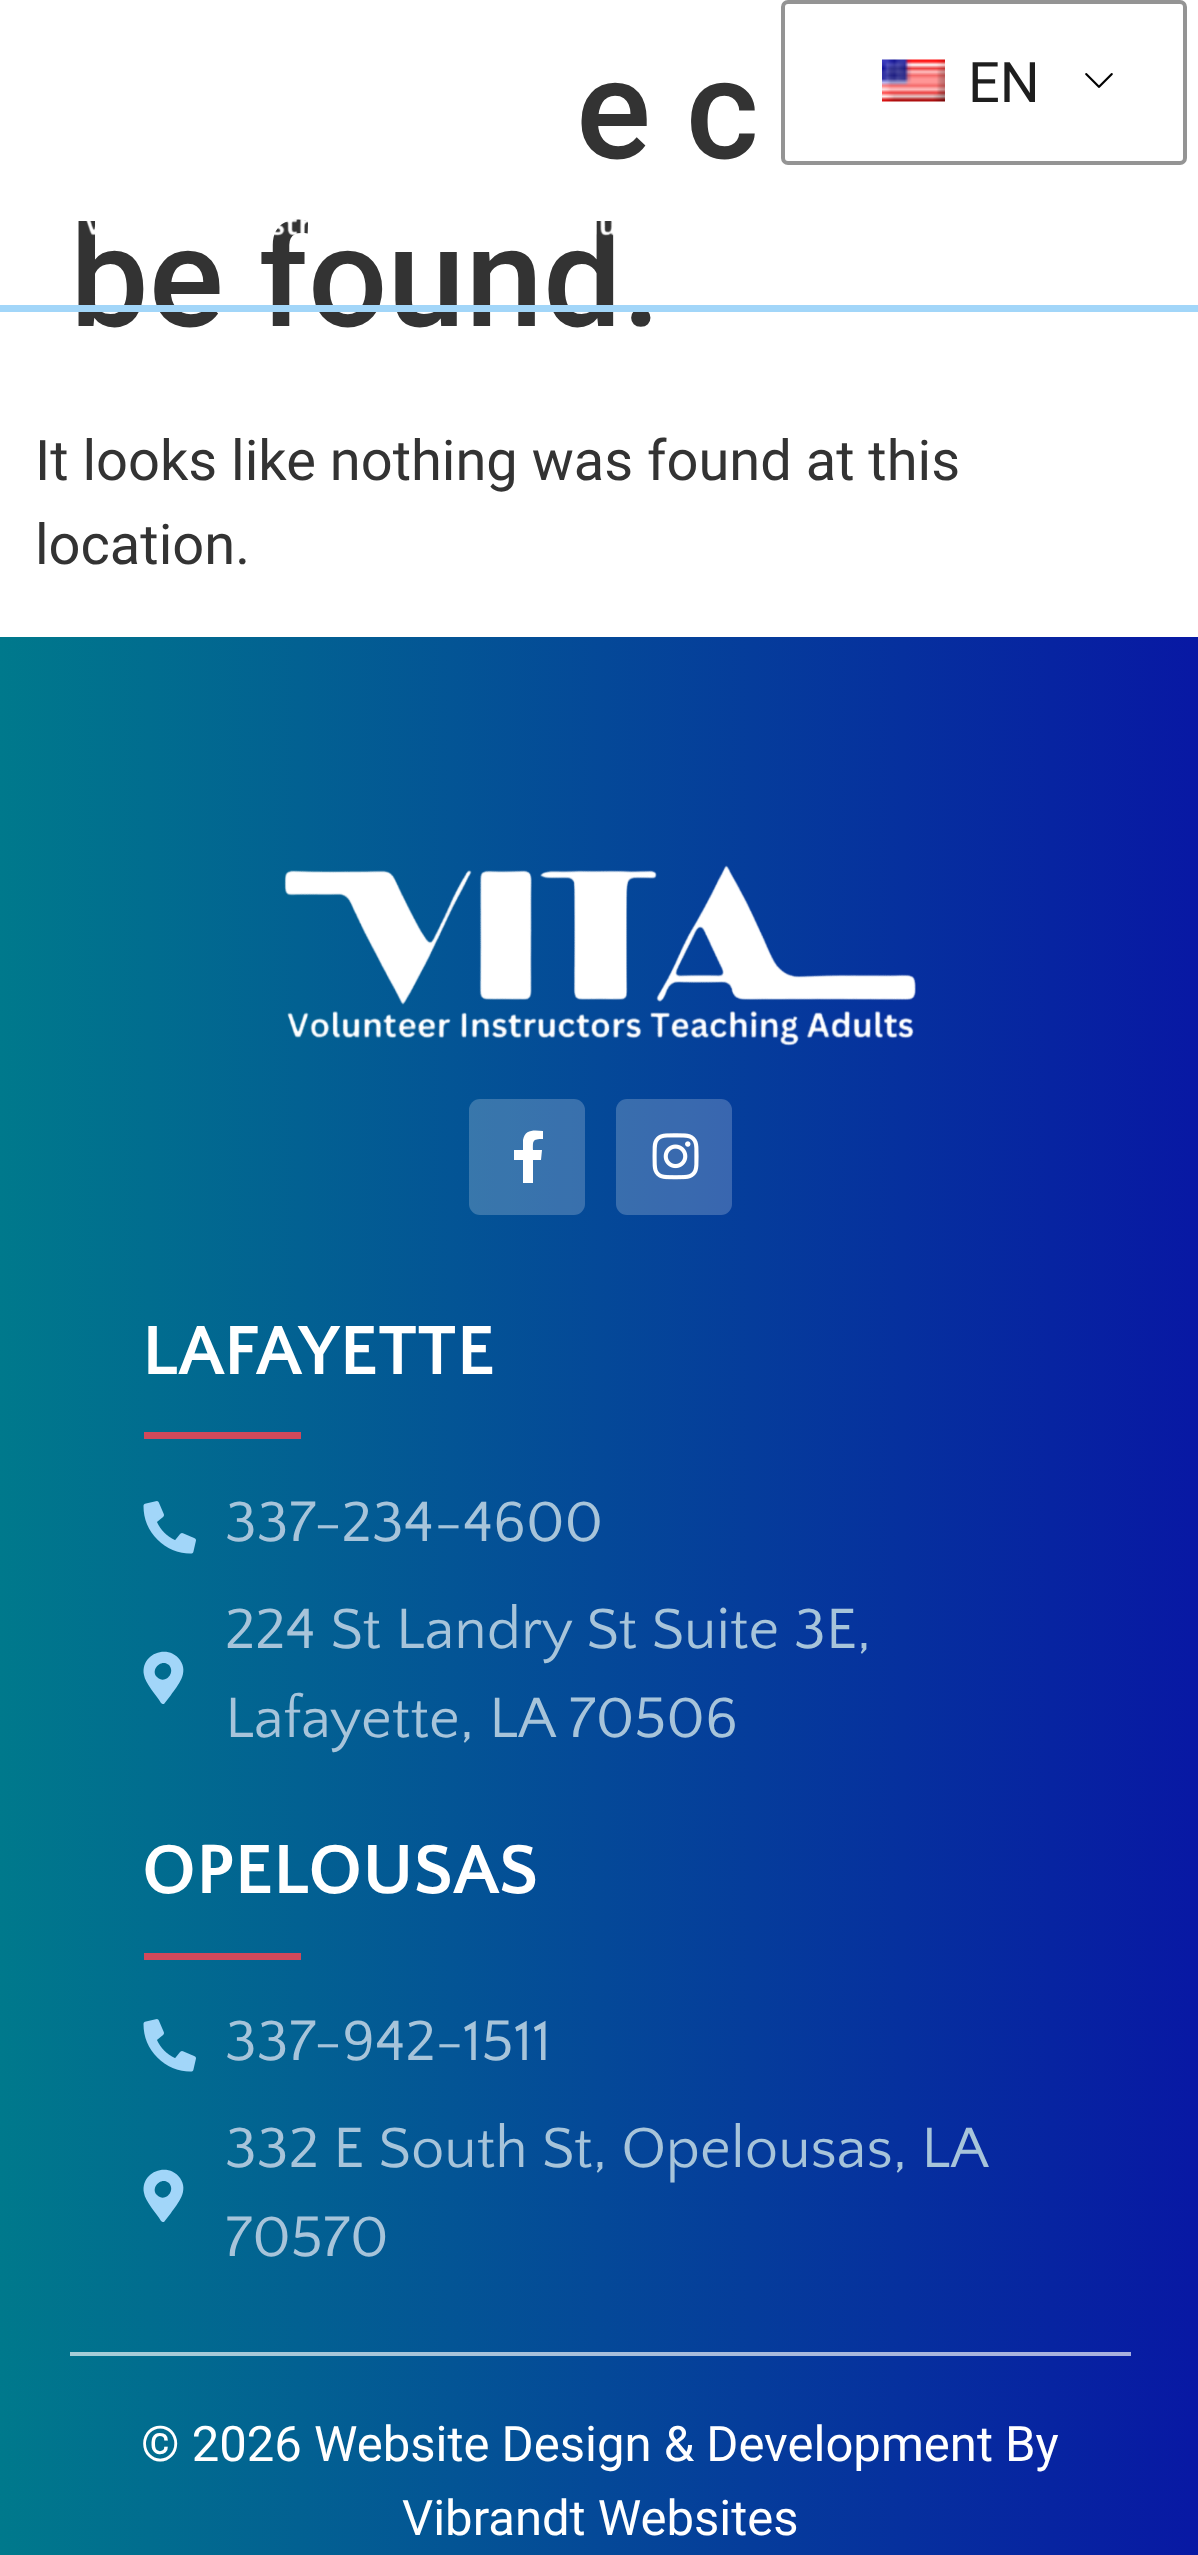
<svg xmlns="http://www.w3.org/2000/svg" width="1198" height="2555">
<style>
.a{font:500 140px Roboto;fill:#333}
.b{font:56px Roboto;fill:#333}
.c{font:56px Roboto;fill:#1e1e1e}
.d{font:bold 72.75px Quattrocento Sans;fill:#fff}
.e{font:59.5px Quattrocento Sans;fill:#a7c4da}
.f{font:49px Roboto;fill:#fff}
</style>
<defs>
<linearGradient id="g1" gradientUnits="userSpaceOnUse" x1="0" y1="1596" x2="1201" y2="1596"><stop offset="0" stop-color="#00798c"/><stop offset="1" stop-color="#0818a4"/></linearGradient>
<linearGradient id="g2" gradientUnits="userSpaceOnUse" x1="0" y1="1596" x2="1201" y2="1596"><stop offset="0" stop-color="#a6d0d7"/><stop offset="1" stop-color="#a9aedf"/></linearGradient>
</defs>
<rect width="100%" height="100%" fill="#fff"/>
<image href="2.png" x="1085" y="73" width="28" height="15"/>
<rect fill="none" stroke="#949494" stroke-width="4" x="783" y="2" width="402" height="161" rx="5"/>
<image href="3.png" x="882" y="59" width="63" height="43"/>
<path fill="url(#g1)" d="M0 637h1198v1918H0z"/>
<path fill="url(#g2)" d="M70 2352h1061v4H70z"/>
<image href="4.png" x="284" y="865" width="632" height="181"/>
<rect fill="#ffffff36" x="469" y="1099" width="116" height="116" rx="11"/>
<path fill="#fff" d="M541 1160h-8v23h-10v-23h-9v-10h9v-10c2-11 11-10 20-9v8c-11 0-10 2-10 11h9z"/>
<rect fill="#ffffff36" x="616" y="1099" width="116" height="116" rx="11"/>
<image href="5.png" x="652" y="1133" width="47" height="47"/>
<path fill="#d1495b" d="M144 1432h157v7H144z"/>
<image href="6.png" x="143" y="1501" width="53" height="53"/>
<path fill="#a2d6f9" d="M161 1703c-4-7-16-20-17-28c-4-21 24-32 36-15c9 13-2 25-9 35l-7 9c-1 0-2 0-3-1zm-4-26c8 8 19-4 12-12c-8-7-19 5-12 12z"/>
<path fill="#d1495b" d="M144 1953h157v7H144z"/>
<image href="6.png" x="143" y="2019" width="53" height="53"/>
<path fill="#a2d6f9" d="M161 2221c-4-7-16-20-17-28c-4-21 24-32 36-15c9 13-2 25-9 35l-7 9c-1 0-2 0-3-1zm-4-26c8 8 19-4 12-12c-8-7-19 5-12 12z"/>
<text class="a" x="576" y="158">e c</text>
<text class="a" x="70" y="326">be found.</text>
<text class="b" x="35" y="480">It looks like nothing was found at this</text>
<text class="b" x="35" y="564">location.</text>
<path fill="#a2d6f9" d="M0 305h1198v7H0z"/>
<image href="1.png" x="86" y="85" width="528" height="151"/>
<text class="c" x="968" y="102">EN</text>
<text class="d" x="142" y="1374">LAFAYETTE</text>
<text class="e" x="225" y="1541">337-234-4600</text>
<text class="e" x="225" y="1648">224 St Landry St Suite 3E,</text>
<text class="e" x="225" y="1737">Lafayette, LA 70506</text>
<text class="d" x="142" y="1893">OPELOUSAS</text>
<text class="e" x="225" y="2060">337-942-1511</text>
<text class="e" x="225" y="2167" word-spacing="-0.5">332 E South St, Opelousas, LA</text>
<text class="e" x="225" y="2256">70570</text>
<text class="f" x="141" y="2461">© 2026 Website Design &amp; Development By</text>
<text class="f" x="402" y="2535">Vibrandt Websites</text>
</svg>
